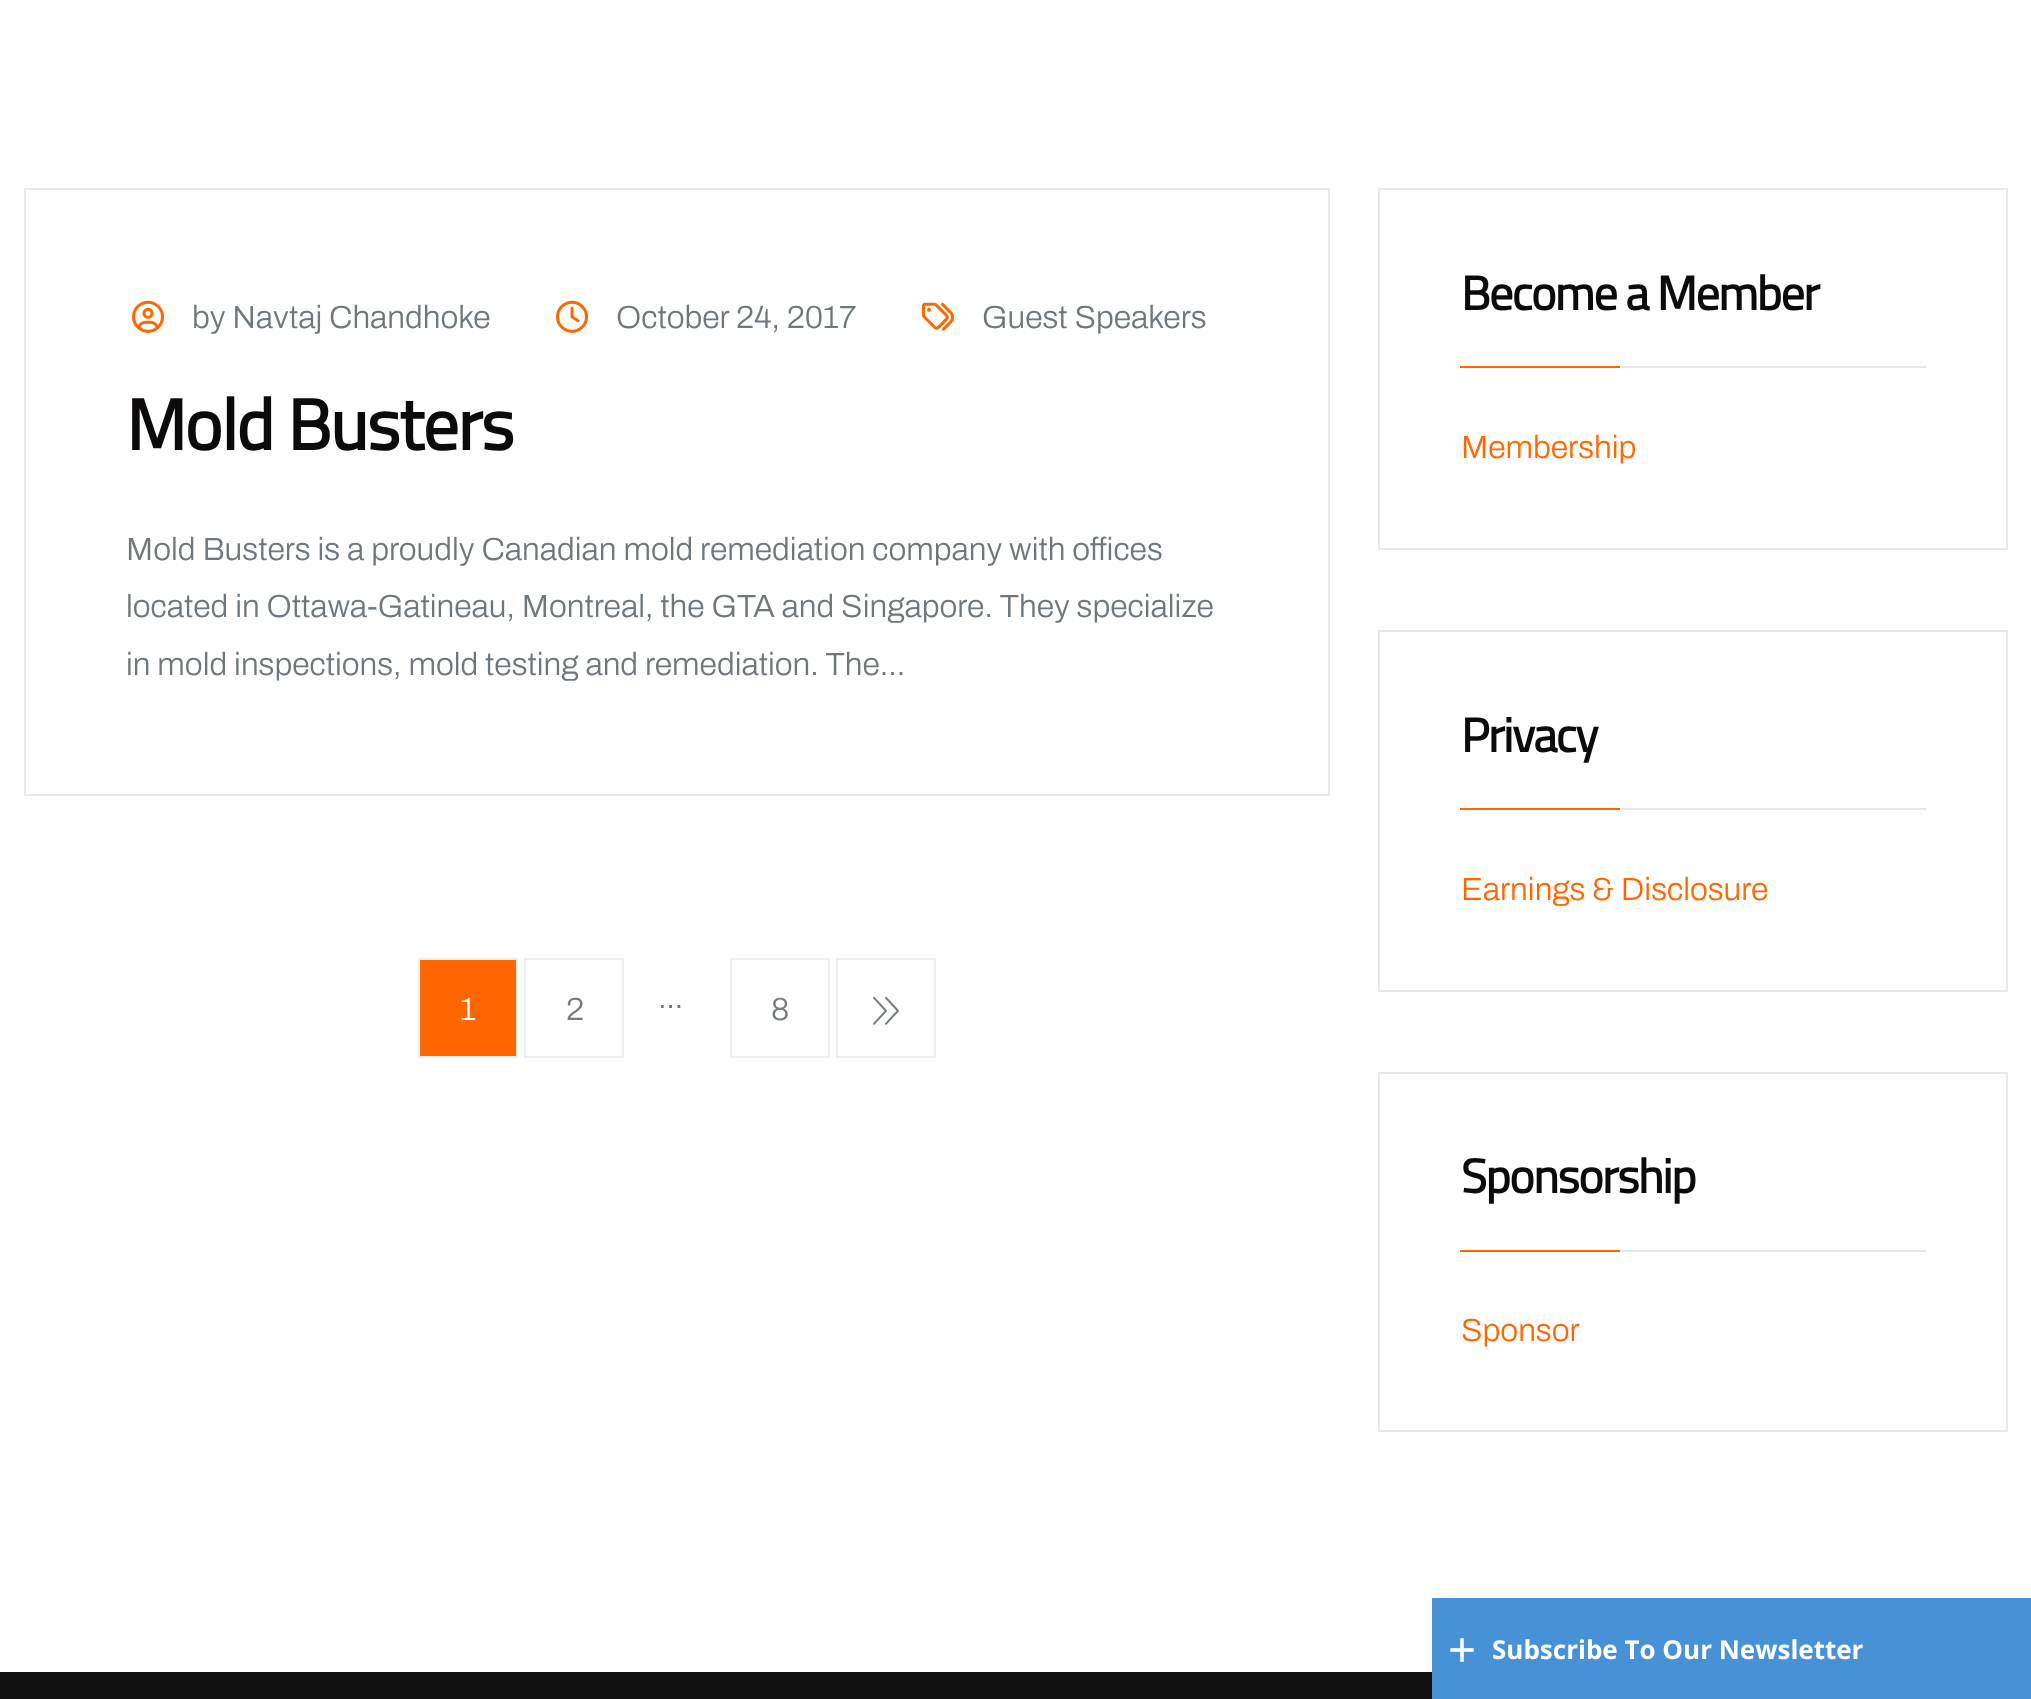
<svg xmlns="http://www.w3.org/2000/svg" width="2031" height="1699">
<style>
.a{font:600 32px Archivo;fill:#6e777d}
.b{font:bold 72px Titillium Web;letter-spacing:-1.5px;fill:#0c0a0a}
.c{font:600 32px Archivo;fill:#fff}
.d{font:600 32px Archivo;fill:#747c82}
.e{font:bold 48px Titillium Web;letter-spacing:-1.5px;fill:#0c0a0a}
.f{font:600 32px Archivo;fill:#f60}
.g{font:48px Liberation Sans;fill:#fff}
.h{font:bold 26px Open Sans;fill:#fff}
</style>
<rect width="100%" height="100%" fill="#fff"/>
<path fill="none" stroke="#e6e9f0" stroke-width="2" d="M25 189h1304v606H25z"/>
<image href="1.png" x="132" y="300" width="32" height="33"/>
<image href="2.png" x="556" y="300" width="32" height="33"/>
<image href="3.png" x="922" y="302" width="32" height="29"/>
<path fill="#f60" stroke="#eee" stroke-width="2" d="M419 959h98v98H419z"/>
<path fill="none" stroke="#efefef" stroke-width="2" d="M525 959h98v98H525z"/>
<path fill="none" stroke="#efefef" stroke-width="2" d="M731 959h98v98H731z"/>
<path fill="none" stroke="#efefef" stroke-width="2" d="M837 959h98v98H837z"/>
<image href="4.png" x="873" y="996" width="26" height="29"/>
<path fill="none" stroke="#e9e9e9" stroke-width="2" d="M1379 189h628v360H1379z"/>
<path fill="#f60" d="M1460 366h160v2H1460z"/>
<path fill="#e7e7e7" d="M1620 366h306v2H1620z"/>
<path fill="none" stroke="#e9e9e9" stroke-width="2" d="M1379 631h628v360H1379z"/>
<path fill="#f60" d="M1460 808h160v2H1460z"/>
<path fill="#e7e7e7" d="M1620 808h306v2H1620z"/>
<path fill="none" stroke="#e9e9e9" stroke-width="2" d="M1379 1073h628v358H1379z"/>
<path fill="#f60" d="M1460 1250h160v2H1460z"/>
<path fill="#e7e7e7" d="M1620 1250h306v2H1620z"/>
<path fill="#111" d="M0 1672h1432v27H0z"/>
<path fill="#4791d6" d="M1432 1598h599v101H1432z"/>
<text class="a" x="192" y="328">by Navtaj Chandhoke</text>
<text class="a" x="616" y="328">October 24, 2017</text>
<text class="a" x="982" y="328">Guest Speakers</text>
<text class="b" x="126" y="450">Mold Busters</text>
<text class="a" x="126" y="560">Mold Busters is a proudly Canadian mold remediation company with offices</text>
<text class="a" x="126" y="617">located in Ottawa-Gatineau, Montreal, the GTA and Singapore. They specialize</text>
<text class="a" x="126" y="675">in mold inspections, mold testing and remediation. The...</text>
<text class="c" x="460" y="1020">1</text>
<text class="d" x="566" y="1020">2</text>
<text class="a" x="658" y="1008">…</text>
<text class="d" x="771" y="1020">8</text>
<text class="e" x="1461" y="310">Become a Member</text>
<text class="f" x="1461" y="458">Membership</text>
<text class="e" x="1461" y="752">Privacy</text>
<text class="f" x="1461" y="900">Earnings &amp; Disclosure</text>
<text class="e" x="1461" y="1193">Sponsorship</text>
<text class="f" x="1461" y="1341">Sponsor</text>
<text class="g" x="1448" y="1666">+</text>
<text class="h" x="1492" y="1659">Subscribe To Our Newsletter</text>
</svg>
